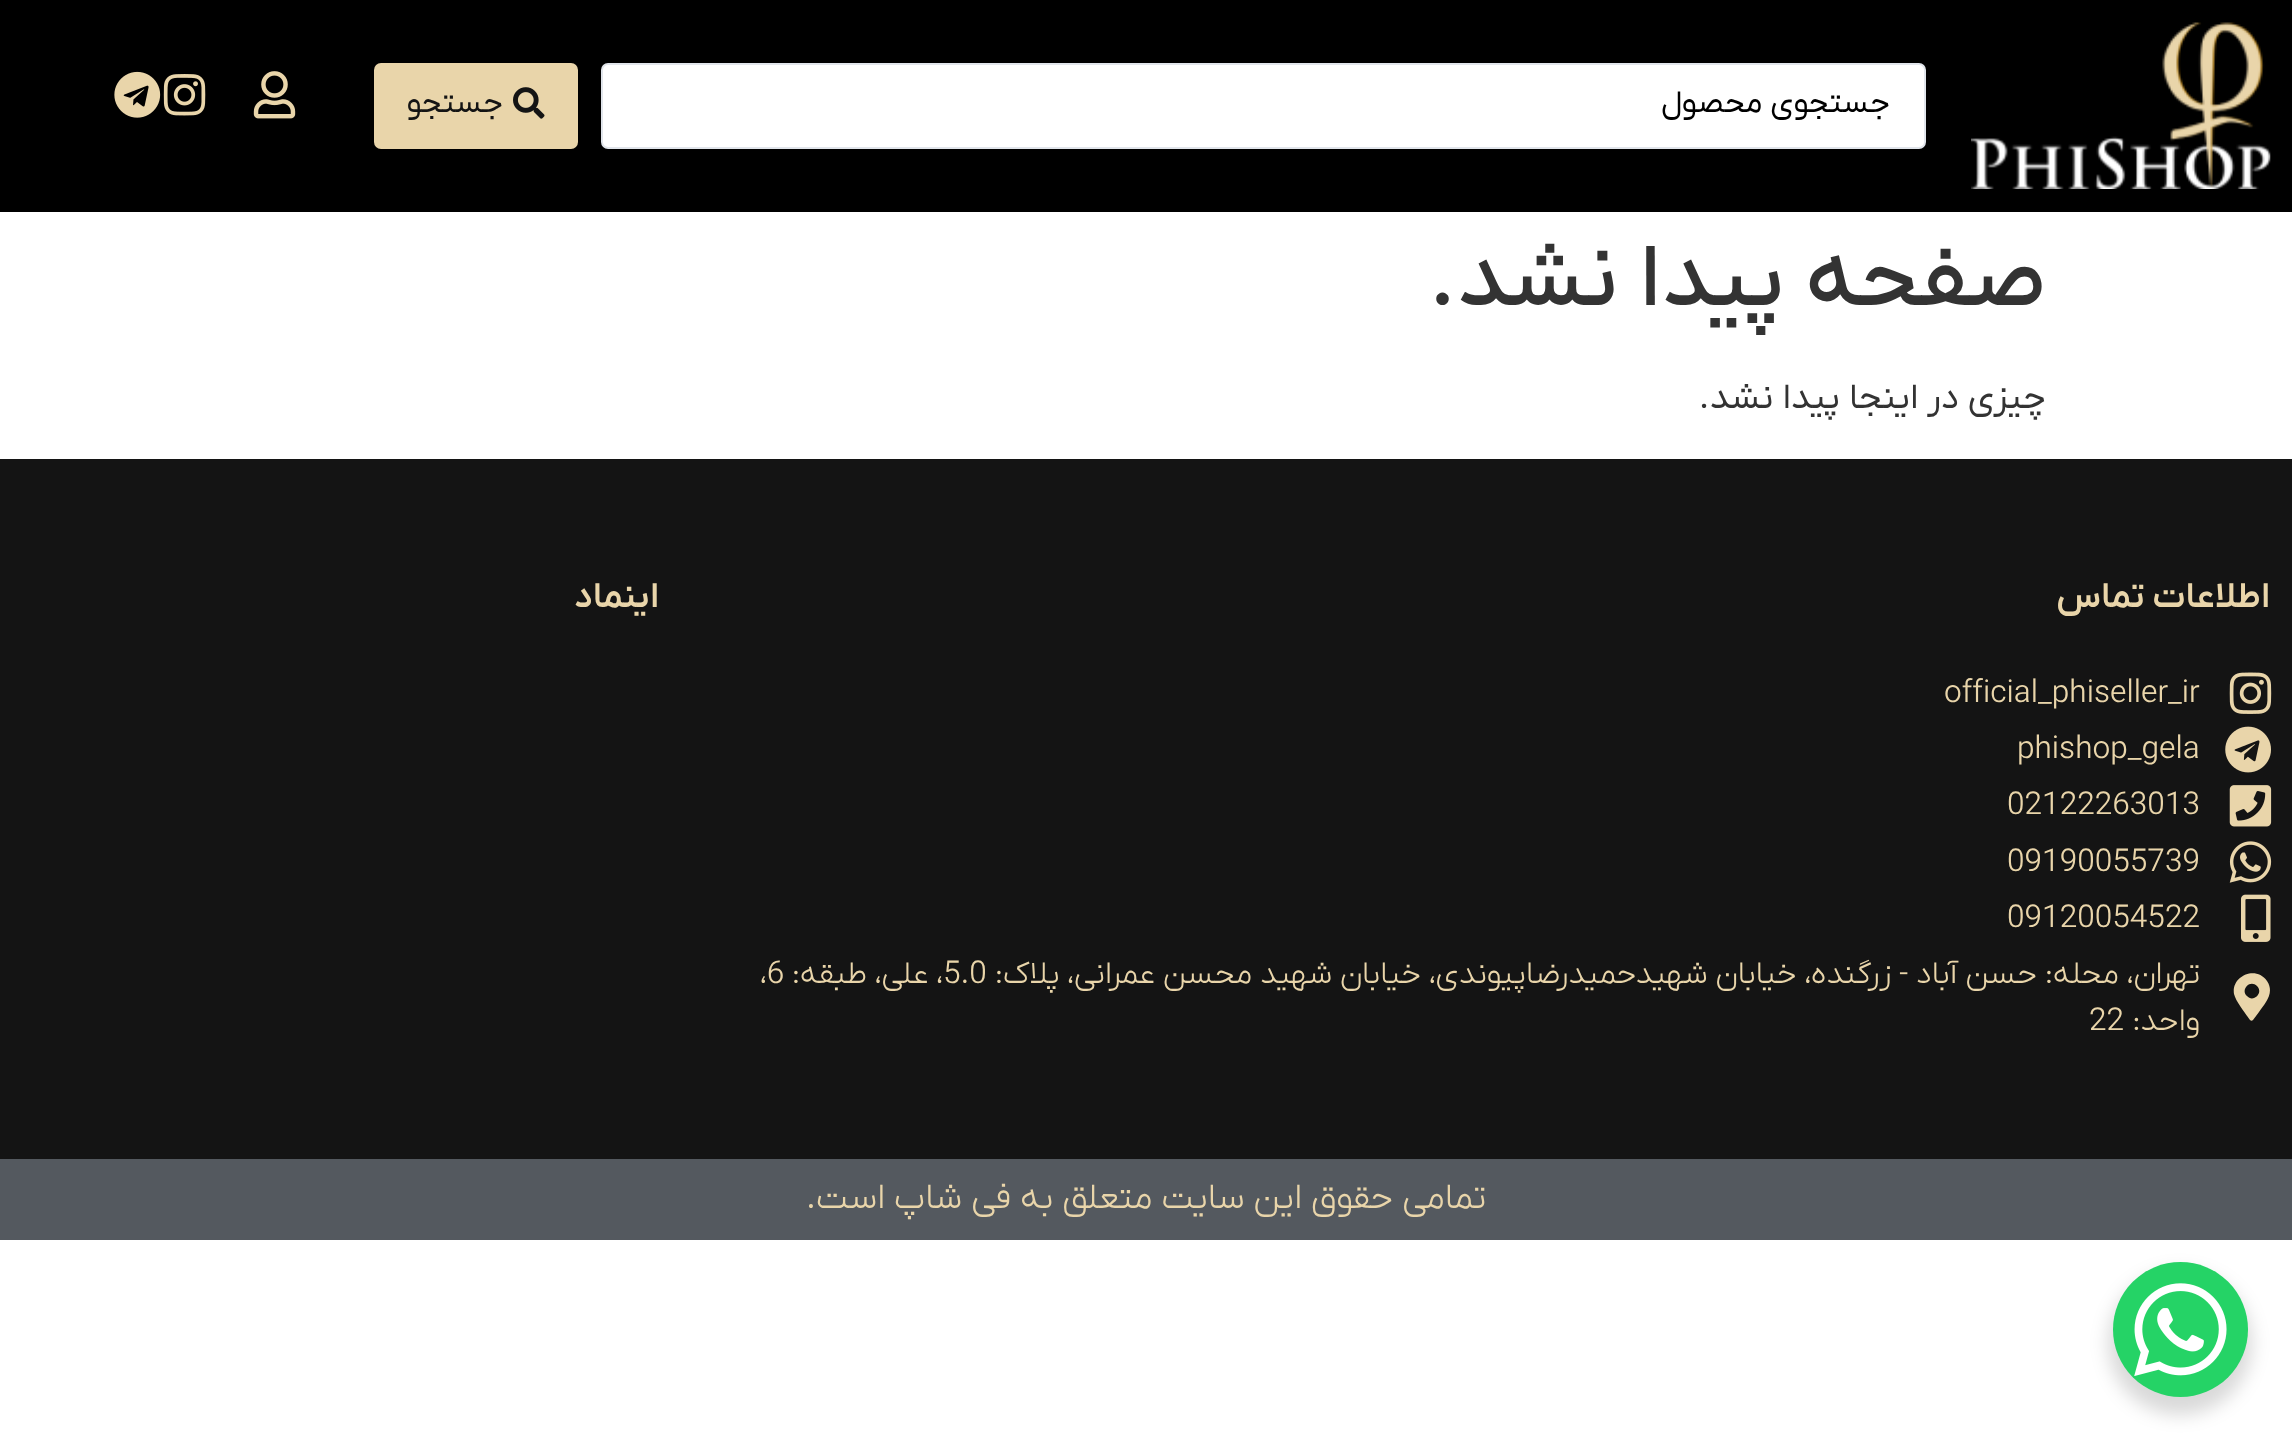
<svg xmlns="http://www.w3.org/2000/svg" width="2292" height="1441">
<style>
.a{font:31.5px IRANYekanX;direction:rtl;fill:#000}
.b{font:31.5px IRANYekanX;direction:rtl;fill:#141414}
.c{font:500 90px IRANYekanX;direction:rtl;fill:#333}
.d{font:36px IRANYekanX;direction:rtl;fill:#333}
.e{font:600 36px IRANYekanX;direction:rtl;fill:#e9d5aa}
.f{font:300 31.5px IRANYekanX;fill:#e9d5aa}
.g{font:300 31.5px IRANYekanX;direction:rtl;fill:#e9d5aa}
.h{font:300 36px IRANYekanX;direction:rtl;fill:#e9d5aa}
</style>
<rect width="100%" height="100%" fill="#fff"/>
<path fill="#000" d="M0 0h2292v212H0z"/>
<image href="1.png" x="1971" y="22" width="300" height="167"/>
<rect fill="#fff" stroke="#e1e5eb" stroke-width="2" x="602" y="64" width="1323" height="84" rx="6"/>
<rect fill="#e9d5aa" x="374" y="63" width="204" height="86" rx="7"/>
<image href="2.png" x="513" y="87" width="32" height="32"/>
<image href="3.png" x="253" y="71" width="43" height="48"/>
<image href="4.png" x="163" y="74" width="43" height="42"/>
<image href="5.png" x="114" y="71" width="47" height="47"/>
<path fill="#141414" d="M0 459h2292v700H0z"/>
<image href="6.png" x="2229" y="672" width="43" height="42"/>
<image href="7.png" x="2225" y="726" width="46" height="47"/>
<image href="8.png" x="2229" y="785" width="43" height="42"/>
<image href="9.png" x="2229" y="841" width="43" height="42"/>
<image href="10.png" x="2241" y="894" width="30" height="48"/>
<path fill="#e9d5aa" d="M2250 1020c-4-6-14-18-16-26c-3-18 22-29 33-13c8 12-2 22-8 31l-6 8c-1 1-2 1-3 0zm-3-24c6 7 17-3 10-10c-7-7-17 4-10 10z"/>
<path fill="#54595f" d="M0 1159h2292v81H0z"/>
<rect fill="#00000026" filter="blur(9px)" x="2108" y="1271" width="144" height="144" rx="72"/>
<circle fill="#25d366" cx="2180.5" cy="1329.5" r="67.5"/>
<image href="11.png" x="2134" y="1283" width="93" height="93"/>
<text class="a" x="1890" y="112">جستجوی محصول</text>
<text class="b" x="503" y="112">جستجو</text>
<text class="c" x="2046" y="305">صفحه پیدا نشد.</text>
<text class="d" x="2046" y="408">چیزی در اینجا پیدا نشد.</text>
<text class="e" x="2270" y="607">اطلاعات تماس</text>
<text class="f" x="1944" y="702">official_phiseller_ir</text>
<text class="f" x="2017" y="758">phishop_gela</text>
<text class="f" x="2007" y="814">02122263013</text>
<text class="f" x="2007" y="871">09190055739</text>
<text class="f" x="2007" y="927">09120054522</text>
<text class="g" x="2200" y="983">تهران، محله: حسن آباد - زرگنده، خیابان شهیدحمیدرضاپیوندی، خیابان شهید محسن عمرانی، پلاک:</text>
<text class="f" x="943" y="983">5.0</text>
<text class="g" x="943" y="983">، علی، طبقه:</text>
<text class="f" x="760" y="983">،6</text>
<text class="g" x="2200" y="1030">واحد:</text>
<text class="f" x="2089" y="1030">22</text>
<text class="e" x="659" y="607">اینماد</text>
<text class="h" x="1486" y="1208">تمامی حقوق این سایت متعلق به فی شاپ است.</text>
</svg>
